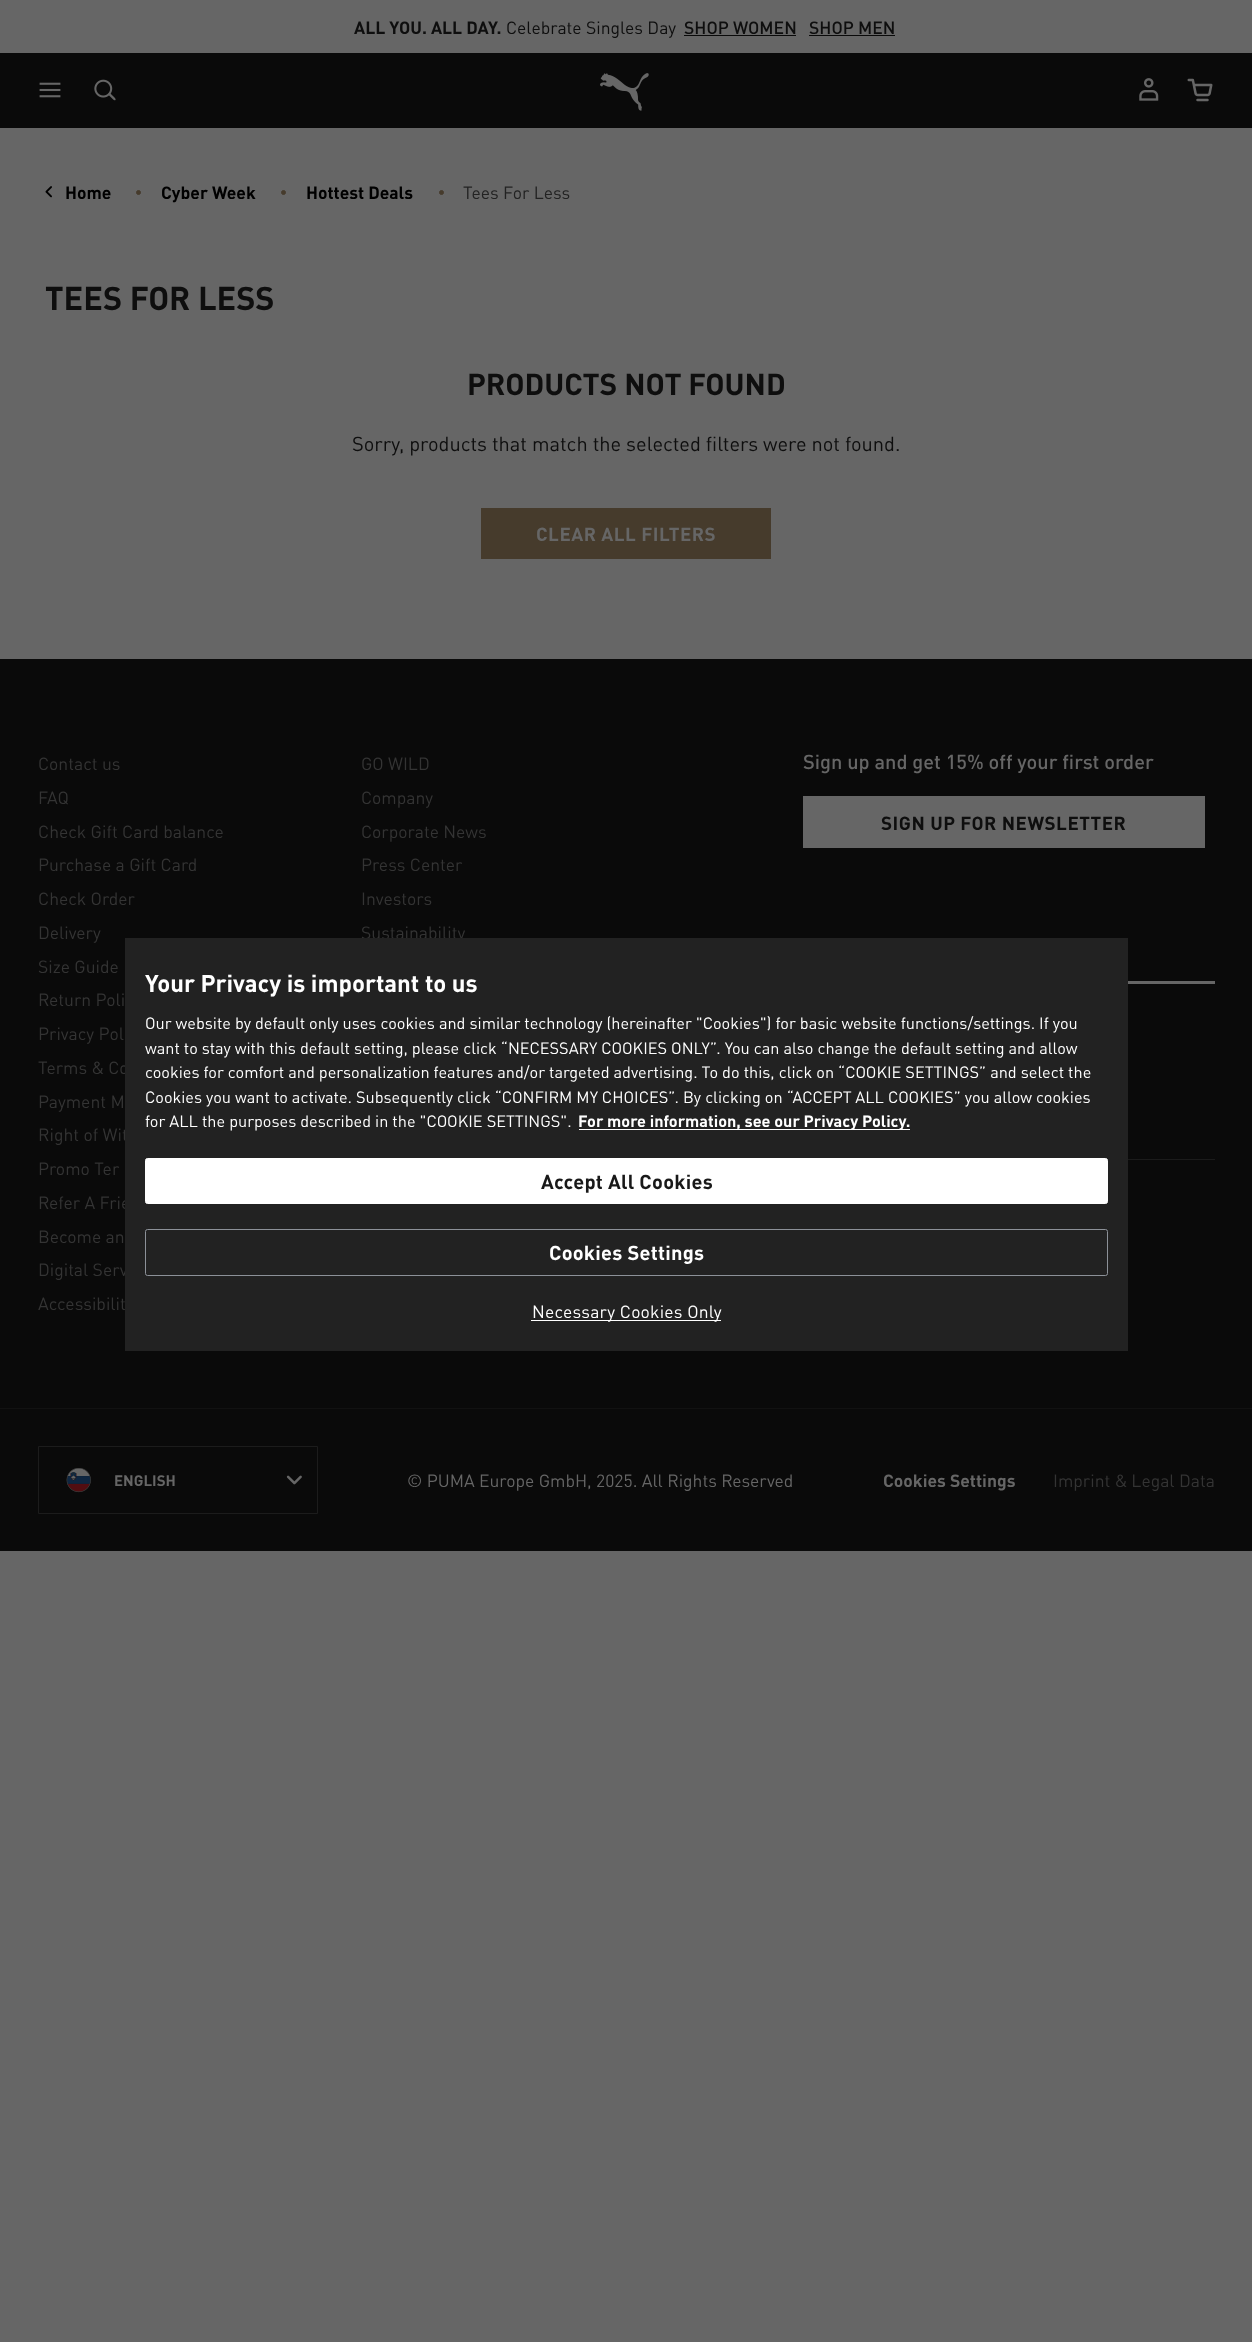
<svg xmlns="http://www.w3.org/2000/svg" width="1252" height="2342">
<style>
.a{font:bold 17.5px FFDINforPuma;fill:#0e0e0e}
.b{font:17.5px FFDINforPuma;fill:#0e0e0e}
.c{font:500 17.5px FFDINforPuma;fill:#0e0e0e}
.d{font:bold 17.5px FFDINforPuma;fill:#000}
.e{font:17.5px FFDINforPuma;fill:#222}
.f{font:bold 32.5px FFDINforPuma;fill:#0e0e0e}
.g{font:bold 30px FFDINforPuma;fill:#0e0e0e}
.h{font:20px FFDINforPuma;fill:#0e0e0e}
.i{font:bold 18.75px FFDINforPuma;letter-spacing:0.5px;fill:#666}
.j{font:17.5px FFDINforPuma;fill:#343434}
.k{font:500 20px FFDINforPuma;fill:#666}
.l{font:bold 18.75px FFDINforPuma;letter-spacing:0.5px;fill:#0e0e0e}
.m{font:bold 15px FFDINforPuma;fill:#666}
.n{font:17.5px FFDINforPuma;fill:#666}
.o{font:bold 17.5px FFDINforPuma;fill:#666}
.p{font:bold 24px FFDINforPuma;fill:#fff}
.q{font:16.25px FFDINforPuma;fill:#fff}
.r{font:bold 16.25px FFDINforPuma;fill:#fff}
.s{font:bold 20px FFDINforPuma;letter-spacing:0.25px;fill:#191919}
.t{font:bold 20px FFDINforPuma;letter-spacing:0.25px;fill:#fff}
.u{font:17.5px FFDINforPuma;letter-spacing:0.2px;fill:#fff}
</style>
<rect width="100%" height="100%" fill="#666"/>
<path fill="#0a0a0a" d="M684 35h112v1H684z"/>
<path fill="#0a0a0a" d="M809 35h86v1H809z"/>
<path fill="#0a0a0a" d="M0 53h1252v75H0z"/>
<image href="1.png" x="39" y="82" width="22" height="16"/>
<image href="2.png" x="94" y="79" width="22" height="22"/>
<image href="3.png" x="600" y="73" width="49" height="38"/>
<image href="4.png" x="1139" y="78" width="20" height="23"/>
<image href="5.png" x="1187" y="78" width="26" height="24"/>
<image href="6.png" x="45" y="186" width="7" height="12"/>
<circle fill="#463b2c" stroke="#463b2c" cx="138.5" cy="192.5" r="2"/>
<circle fill="#463b2c" stroke="#463b2c" cx="283.5" cy="192.5" r="2"/>
<circle fill="#463b2c" stroke="#463b2c" cx="441.5" cy="192.5" r="2"/>
<path fill="#463b2c" d="M481 508h290v51H481z"/>
<path fill="#0a0a0a" d="M0 659h1252v749H0z"/>
<path fill="#666" d="M803 796h402v52H803z"/>
<path fill="#666" d="M1128 981h87v3H1128z"/>
<path fill="#1b1b1b" d="M1128 1159h87v1H1128z"/>
<path fill="#0a0a0a" d="M0 1409h1252v142H0z"/>
<path fill="#121212" d="M0 1408h1252v1H0z"/>
<path fill="none" stroke="#1c1c1c" d="M38.5 1446.5h279v67H38.5z"/>
<image href="7.png" x="66" y="1468" width="25" height="25"/>
<image href="8.png" x="286" y="1475" width="16" height="10"/>
<text class="a" x="354" y="34">ALL YOU. ALL DAY.</text>
<text class="b" x="506" y="34">Celebrate Singles Day</text>
<text class="c" x="684" y="34">SHOP WOMEN</text>
<text class="c" x="809" y="34">SHOP MEN</text>
<text class="d" x="65" y="199">Home</text>
<text class="d" x="161" y="199">Cyber Week</text>
<text class="d" x="306" y="199">Hottest Deals</text>
<text class="e" x="463" y="199">Tees For Less</text>
<text class="f" x="45" y="310">TEES FOR LESS</text>
<text class="g" x="467" y="395">PRODUCTS NOT FOUND</text>
<text class="h" x="352" y="451">Sorry, products that match the selected filters were not found.</text>
<text class="i" x="536" y="541">CLEAR ALL FILTERS</text>
<text class="j" x="38" y="770">Contact us</text>
<text class="j" x="38" y="804">FAQ</text>
<text class="j" x="38" y="838">Check Gift Card balance</text>
<text class="j" x="38" y="871">Purchase a Gift Card</text>
<text class="j" x="38" y="905">Check Order</text>
<text class="j" x="38" y="939">Delivery</text>
<text class="j" x="38" y="973">Size Guide</text>
<text class="j" x="38" y="1006">Return Poli</text>
<text class="j" x="38" y="1040">Privacy Pol</text>
<text class="j" x="38" y="1074">Terms &amp; Co</text>
<text class="j" x="38" y="1108">Payment M</text>
<text class="j" x="38" y="1141">Right of Wit</text>
<text class="j" x="38" y="1175">Promo Ter</text>
<text class="j" x="38" y="1209">Refer A Frie</text>
<text class="j" x="38" y="1243">Become an</text>
<text class="j" x="38" y="1276">Digital Serv</text>
<text class="j" x="38" y="1310">Accessibilit</text>
<text class="j" x="361" y="770">GO WILD</text>
<text class="j" x="361" y="804">Company</text>
<text class="j" x="361" y="838">Corporate News</text>
<text class="j" x="361" y="871">Press Center</text>
<text class="j" x="361" y="905">Investors</text>
<text class="j" x="361" y="939">Sustainability</text>
<text class="k" x="803" y="769">Sign up and get 15% off your first order</text>
<text class="l" x="881" y="830">SIGN UP FOR NEWSLETTER</text>
<text class="m" x="114" y="1486">ENGLISH</text>
<text class="n" x="407" y="1487">© PUMA Europe GmbH, 2025. All Rights Reserved</text>
<text class="o" x="883" y="1487">Cookies Settings</text>
<text class="j" x="1053" y="1487">Imprint &amp; Legal Data</text>
<path fill="#222" d="M125 938h1003v413H125z"/>
<text class="p" x="145" y="992">Your Privacy is important to us</text>
<text class="q" x="145" y="1029">Our website by default only uses cookies and similar technology (hereinafter "Cookies") for basic website functions/settings. If you</text>
<text class="q" x="145" y="1054">want to stay with this default setting, please click “NECESSARY COOKIES ONLY”. You can also change the default setting and allow</text>
<text class="q" x="145" y="1078">cookies for comfort and personalization features and/or targeted advertising. To do this, click on “COOKIE SETTINGS” and select the</text>
<text class="q" x="145" y="1103">Cookies you want to activate. Subsequently click “CONFIRM MY CHOICES”. By clicking on “ACCEPT ALL COOKIES” you allow cookies</text>
<text class="q" x="145" y="1127">for ALL the purposes described in the "COOKIE SETTINGS".</text>
<path fill="#fff" d="M579 1129h331v1H579z"/>
<text class="r" x="578" y="1127">For more information, see our Privacy Policy.</text>
<rect fill="#fff" stroke="#fff" x="145.5" y="1158.5" width="962" height="45" rx="2"/>
<text class="s" x="541" y="1189">Accept All Cookies</text>
<rect fill="none" stroke="#8c9198" x="145.5" y="1229.5" width="962" height="46" rx="2"/>
<text class="t" x="549" y="1260">Cookies Settings</text>
<path fill="#fff" d="M531 1320h190v1H531z"/>
<text class="u" x="532" y="1318">Necessary Cookies Only</text>
</svg>
